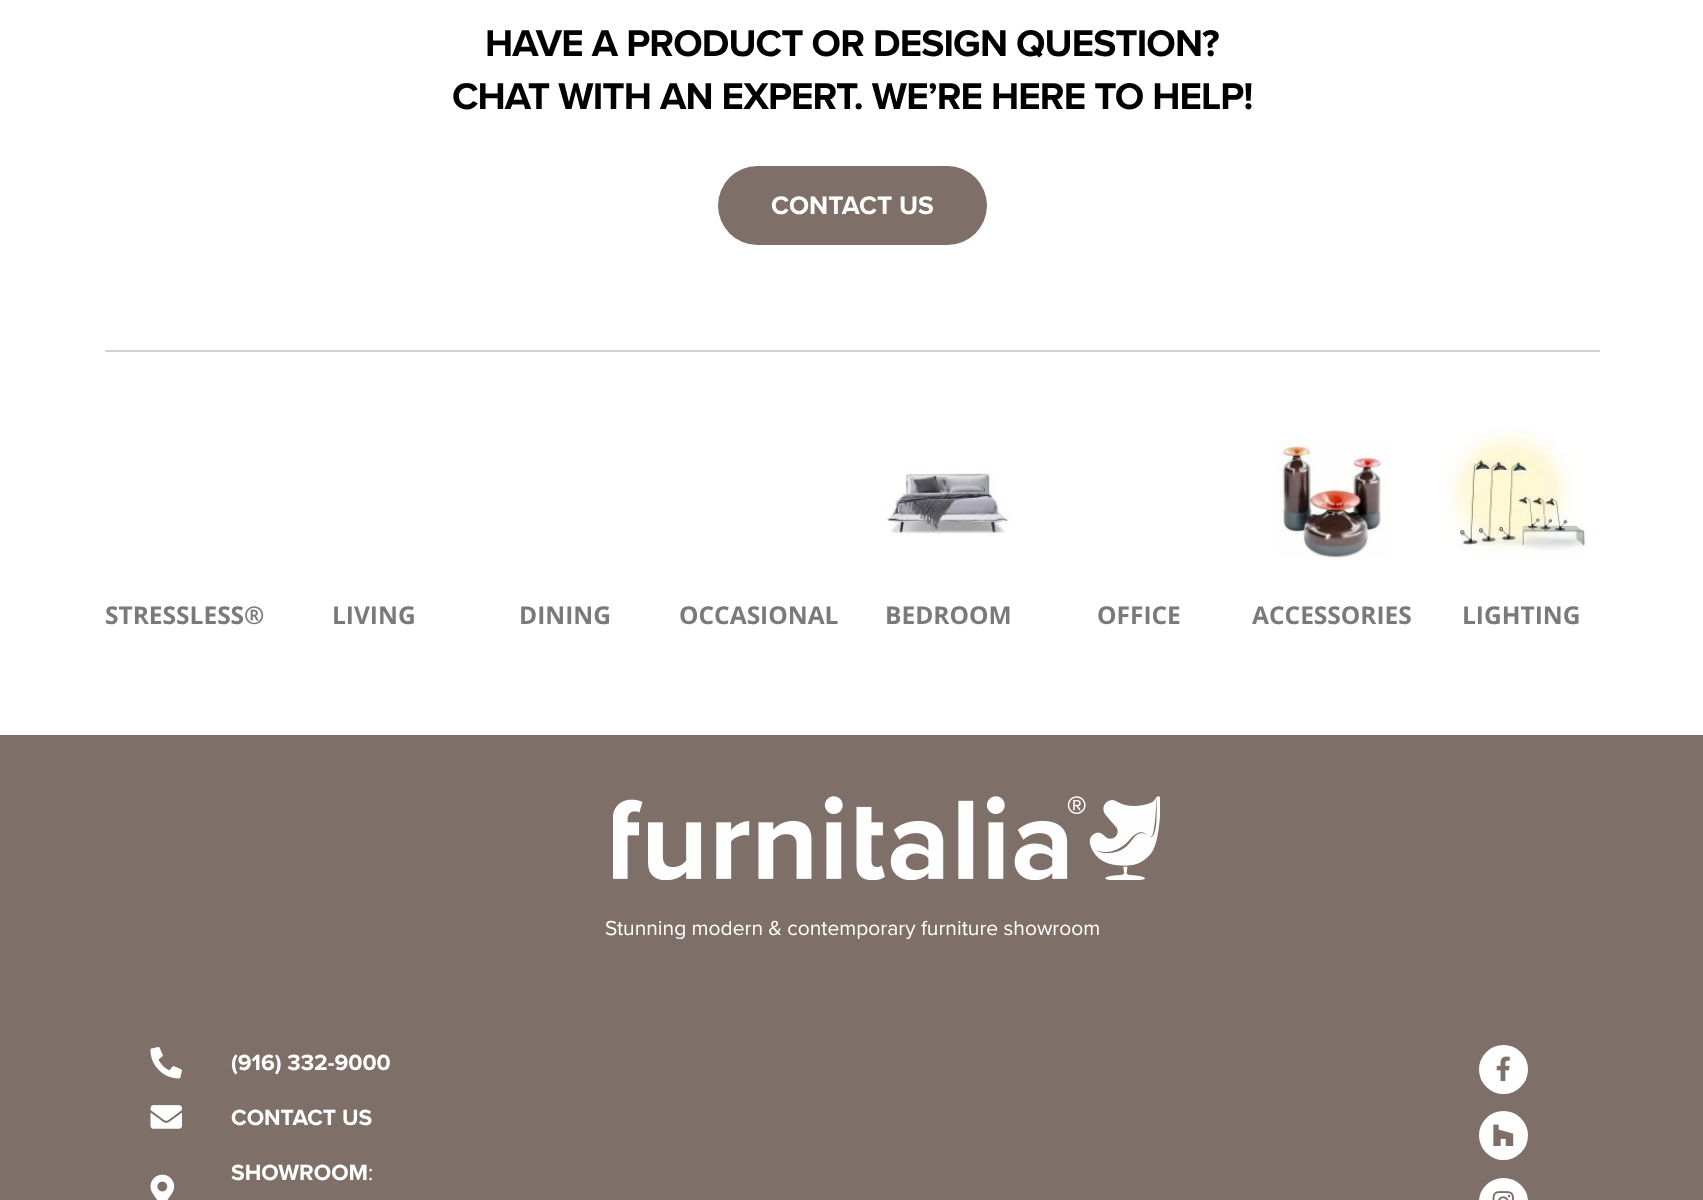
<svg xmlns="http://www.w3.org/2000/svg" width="1703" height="1200">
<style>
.a{font:bold 38.5px Proxima Nova;letter-spacing:-0.9px;fill:#000}
.b{font:bold 26.25px Proxima Nova;fill:#fff}
.c{font:bold 24.5px Open Sans;fill:#7a7a7a}
.d{font:21px Proxima Nova;fill:#fff}
.e{font:bold 22.75px Proxima Nova;fill:#fff}
.f{font:22.75px Proxima Nova;fill:#fff}
</style>
<rect width="100%" height="100%" fill="#fff"/>
<rect fill="#7e7068" x="718" y="166" width="269" height="79" rx="39.5"/>
<path fill="#d7d2cb" d="M105 350h1495v2H105z"/>
<image href="1.png" x="886" y="471" width="125" height="63"/>
<image href="2.png" x="1278" y="439" width="111" height="119"/>
<image href="3.png" x="1444" y="429" width="141" height="125"/>
<path fill="#7e7068" d="M0 735h1703v465H0z"/>
<image href="4.png" x="613" y="796" width="547" height="84"/>
<image href="5.png" x="150" y="1047" width="32" height="32"/>
<image href="6.png" x="150" y="1105" width="32" height="24"/>
<image href="7.png" x="150" y="1174" width="25" height="26"/>
<circle fill="#fff" cx="1503.5" cy="1069.5" r="24.5"/>
<image href="8.png" x="1496" y="1056" width="14" height="26"/>
<circle fill="#fff" cx="1503.5" cy="1135.5" r="24.5"/>
<image href="9.png" x="1493" y="1124" width="21" height="22"/>
<rect fill="#fff" x="1479" y="1178" width="49" height="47" rx="24.5"/>
<image href="10.png" x="1492" y="1191" width="22" height="9"/>
<text class="a" x="485" y="56">HAVE A PRODUCT OR DESIGN QUESTION?</text>
<text class="a" x="452" y="109">CHAT WITH AN EXPERT. WE’RE HERE TO HELP!</text>
<text class="b" x="771" y="214">CONTACT US</text>
<text class="c" x="105" y="624">STRESSLESS®</text>
<text class="c" x="332" y="624">LIVING</text>
<text class="c" x="519" y="624">DINING</text>
<text class="c" x="679" y="624">OCCASIONAL</text>
<text class="c" x="885" y="624">BEDROOM</text>
<text class="c" x="1097" y="624">OFFICE</text>
<text class="c" x="1252" y="624">ACCESSORIES</text>
<text class="c" x="1462" y="624">LIGHTING</text>
<text class="d" x="605" y="935">Stunning modern &amp; contemporary furniture showroom</text>
<text class="e" x="231" y="1070">(916) 332-9000</text>
<text class="e" x="231" y="1125">CONTACT US</text>
<text class="e" x="231" y="1180">SHOWROOM</text>
<text class="f" x="368" y="1180">:</text>
</svg>
